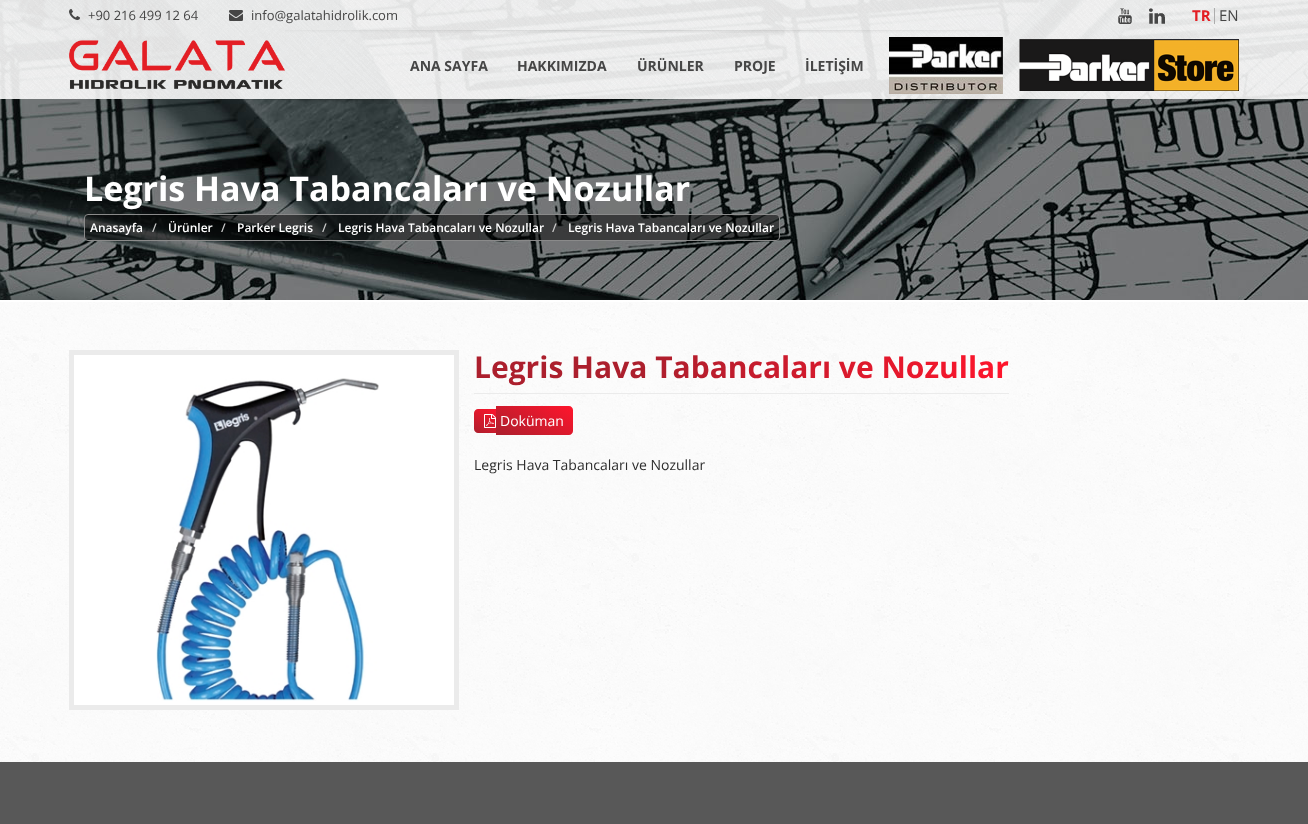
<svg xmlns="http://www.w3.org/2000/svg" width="1308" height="824">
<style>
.a{font:13px Open Sans;fill:#464646}
.b{font:bold 15px Open Sans;fill:#e31e24}
.c{font:15px Open Sans;fill:#464646}
.d{font:bold 14px Open Sans;fill:#464646}
.e{font:bold 34px Open Sans;fill:#fff}
.f{font:600 12px Open Sans;fill:#fff}
.g{font:600 12px Open Sans;fill:#ccc}
.h{font:bold 30px Open Sans;fill:url(#g1)}
.i{font:14px Open Sans;fill:#fff}
.j{font:14px Open Sans;fill:#2d2d2d}
</style>
<defs>
<linearGradient id="g1" gradientUnits="userSpaceOnUse" x1="474" y1="372" x2="1009" y2="372"><stop offset="0.32" stop-color="#ac1f2d"/><stop offset="1" stop-color="#ff152c"/></linearGradient>
<linearGradient id="g2" gradientUnits="userSpaceOnUse" x1="477" y1="435" x2="493" y2="407"><stop offset="0" stop-color="#ac1f2d"/><stop offset="1" stop-color="#ff152c"/></linearGradient>
<linearGradient id="g3" gradientUnits="userSpaceOnUse" x1="519" y1="448" x2="550" y2="393"><stop offset="0" stop-color="#ac1f2d"/><stop offset="1" stop-color="#ff152c"/></linearGradient>
</defs>
<rect width="100%" height="100%" fill="#fff"/>
<image href="1.png" x="0" y="302" width="1308" height="460"/>
<image href="11.png" x="0" y="0" width="1308" height="300"/>
<image href="2.png" x="0" y="0" width="1308" height="99"/>
<image href="3.png" x="69" y="9" width="11" height="11"/>
<image href="4.png" x="229" y="10" width="14" height="11"/>
<image href="5.png" x="1118" y="8" width="14" height="16"/>
<image href="6.png" x="1149" y="8" width="16" height="16"/>
<path fill="#adadad" d="M1214 8h1v16H1214z"/>
<image href="7.png" x="285" y="30" width="724" height="3"/>
<image href="8.png" x="69" y="40" width="216" height="49"/>
<image href="9.png" x="889" y="37" width="350" height="57"/>
<image href="10.png" x="246" y="99" width="820" height="5"/>
<rect fill="#00000080" stroke="#8a8a8a" x="84.5" y="214.5" width="695" height="26" rx="3.5"/>
<path fill="#fff" stroke="#ebebeb" stroke-width="5" d="M71.5 352.5h385v355H71.5z"/>
<image href="12.png" x="156" y="378" width="223" height="323"/>
<path fill="#ebebeb" d="M474 393h535v1H474z"/>
<path fill="url(#g2)" d="M478 409h18v24h-18c-2 0-4-2-4-4v-16c0-2 2-4 4-4z"/>
<path fill="url(#g3)" d="M496 406h73c2 0 4 2 4 4v21c0 2-2 4-4 4h-73z"/>
<image href="13.png" x="484" y="414" width="12" height="14"/>
<path fill="#585858" d="M0 762h1308v62H0z"/>
<text class="a" x="88" y="20">+90 216 499 12 64</text>
<text class="a" x="251" y="20">info@galatahidrolik.com</text>
<text class="b" x="1192" y="21">TR</text>
<text class="c" x="1219" y="21">EN</text>
<text class="d" x="410" y="71">ANA SAYFA</text>
<text class="d" x="517" y="71">HAKKIMIZDA</text>
<text class="d" x="637" y="71">ÜRÜNLER</text>
<text class="d" x="734" y="71">PROJE</text>
<text class="d" x="805" y="71">İLETİŞİM</text>
<text class="e" x="84" y="201">Legris Hava Tabancaları ve Nozullar</text>
<text class="f" x="90" y="232">Anasayfa</text>
<text class="g" x="152" y="232">/</text>
<text class="f" x="168" y="232">Ürünler</text>
<text class="g" x="221" y="232">/</text>
<text class="f" x="237" y="232">Parker Legris</text>
<text class="g" x="322" y="232">/</text>
<text class="f" x="338" y="232">Legris Hava Tabancaları ve Nozullar</text>
<text class="g" x="552" y="232">/</text>
<text class="f" x="568" y="232">Legris Hava Tabancaları ve Nozullar</text>
<text class="h" x="474" y="378">Legris Hava Tabancaları ve Nozullar</text>
<text class="i" x="500" y="426">Doküman</text>
<text class="j" x="474" y="470">Legris Hava Tabancaları ve Nozullar</text>
</svg>
